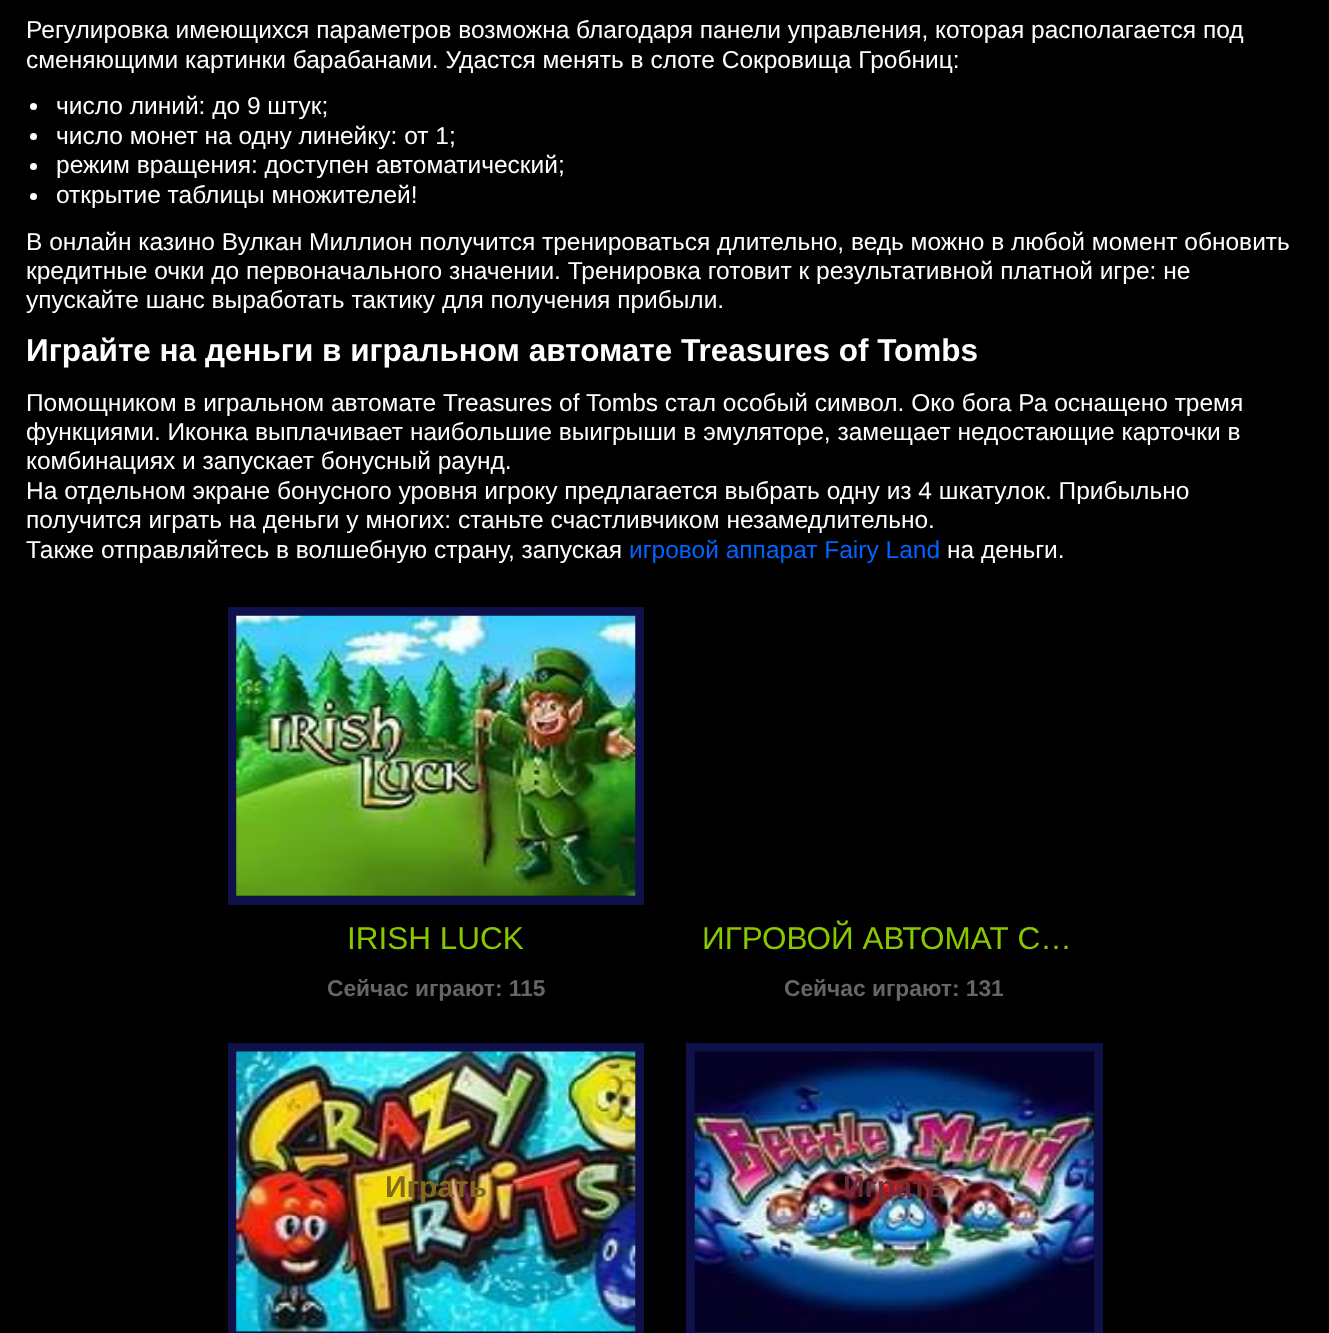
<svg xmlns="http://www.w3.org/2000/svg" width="1329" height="1333">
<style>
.a{font:24.5px Liberation Sans;fill:#fff}
.b{font:bold 31.5px Liberation Sans;fill:#fff}
.c{font:24.5px Liberation Sans;fill:#0064ff}
.d{font:31.5px Liberation Sans;fill:#89c700}
.e{font:bold 22.75px Liberation Sans;fill:#666}
.f{font:bold 30px Liberation Sans;fill:#836920}
.g{font:bold 30px Liberation Sans;fill:#702b34}
</style>
<rect width="100%" height="100%" fill="#000"/>
<circle fill="#fff" cx="33.5" cy="106.5" r="3.5"/>
<circle fill="#fff" cx="33.5" cy="136.5" r="3.5"/>
<circle fill="#fff" cx="33.5" cy="166.5" r="3.5"/>
<circle fill="#fff" cx="33.5" cy="196.5" r="3.5"/>
<path fill="none" stroke="#0f124a" stroke-width="9" d="M232.5 611.5h407v289H232.5z"/>
<image href="1.png" x="236" y="615" width="400" height="281"/>
<path fill="none" stroke="#0f124a" stroke-width="9" d="M232.5 1047.5h407v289H232.5z"/>
<image href="2.png" x="236" y="1051" width="400" height="281"/>
<path fill="none" stroke="#0f124a" stroke-width="9" d="M690.5 1047.5h408v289H690.5z"/>
<image href="3.png" x="694" y="1051" width="400" height="281"/>
<text class="a" x="26" y="38">Регулировка имеющихся параметров возможна благодаря панели управления, которая располагается под</text>
<text class="a" x="26" y="68">сменяющими картинки барабанами. Удастся менять в слоте Сокровища Гробниц:</text>
<text class="a" x="56" y="114">число линий: до 9 штук;</text>
<text class="a" x="56" y="144">число монет на одну линейку: от 1;</text>
<text class="a" x="56" y="173">режим вращения: доступен автоматический;</text>
<text class="a" x="56" y="203">открытие таблицы множителей!</text>
<text class="a" x="26" y="250">В онлайн казино Вулкан Миллион получится тренироваться длительно, ведь можно в любой момент обновить</text>
<text class="a" x="26" y="279">кредитные очки до первоначального значении. Тренировка готовит к результативной платной игре: не</text>
<text class="a" x="26" y="308">упускайте шанс выработать тактику для получения прибыли.</text>
<text class="b" x="26" y="361">Играйте на деньги в игральном автомате Treasures of Tombs</text>
<text class="a" x="26" y="411">Помощником в игральном автомате Treasures of Tombs стал особый символ. Око бога Ра оснащено тремя</text>
<text class="a" x="26" y="440">функциями. Иконка выплачивает наибольшие выигрыши в эмуляторе, замещает недостающие карточки в</text>
<text class="a" x="26" y="469">комбинациях и запускает бонусный раунд.</text>
<text class="a" x="26" y="499">На отдельном экране бонусного уровня игроку предлагается выбрать одну из 4 шкатулок. Прибыльно</text>
<text class="a" x="26" y="528">получится играть на деньги у многих: станьте счастливчиком незамедлительно.</text>
<text class="a" x="26" y="558">Также отправляйтесь в волшебную страну, запуская</text>
<text class="c" x="629" y="558">игровой аппарат Fairy Land</text>
<text class="a" x="947" y="558">на деньги.</text>
<text class="d" x="347" y="949">IRISH LUCK</text>
<text class="e" x="327" y="996">Сейчас играют: 115</text>
<text class="d" x="702" y="949">ИГРОВОЙ АВТОМАТ С…</text>
<text class="e" x="784" y="996">Сейчас играют: 131</text>
<text class="f" x="385" y="1197">Играть</text>
<text class="g" x="843" y="1197">Играть</text>
</svg>
